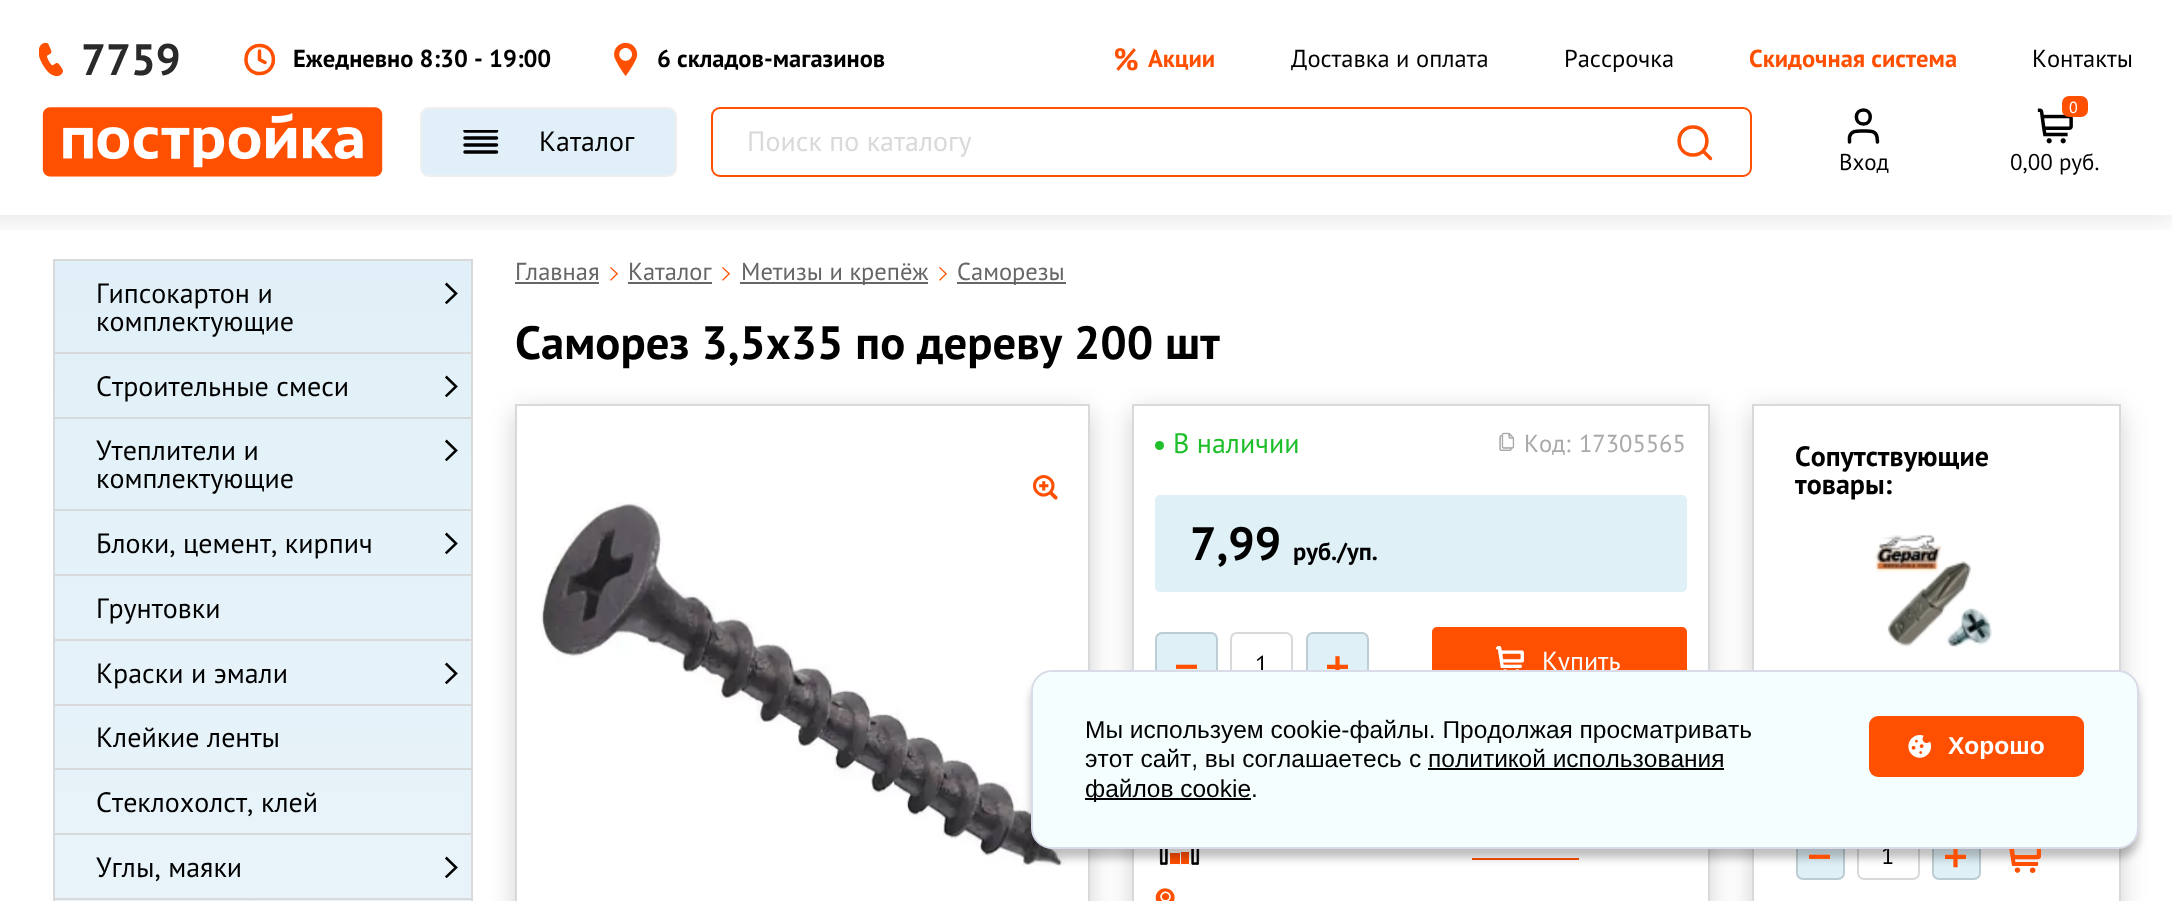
<svg xmlns="http://www.w3.org/2000/svg" width="2172" height="901">
<style>*{font-kerning:none!important;font-variant-ligatures:none!important}</style>
<style>
.a{font:bold 44px PT Sans;fill:#2a2a2a}
.b{font:bold 24.5px PT Sans;fill:#000}
.c{font:bold 24.5px PT Sans;fill:#ff4f00}
.d{font:24.5px PT Sans;fill:#000}
.e{font:28px PT Sans;fill:#000}
.f{font:28px PT Sans;fill:#d9d9d9}
.g{font:23px PT Sans;fill:#000}
.h{font:16px PT Sans;fill:#fff}
.i{font:bold 21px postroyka;fill:#000}
.j{font:24.5px PT Sans;fill:#666}
.k{font:14px postroyka;fill:#ff4f00}
.l{font:bold 46.7px PT Sans;fill:#000}
.m{font:24.5px postroyka;fill:#ff4f00}
.n{font:28px PT Sans;fill:#1fbf2b}
.o{font:24.5px PT Sans;fill:#a9a9a9}
.p{font:21px postroyka;fill:#ff4f00}
.q{font:28px postroyka;fill:#fff}
.r{font:26px PT Sans;fill:#fff}
.s{font:bold 28px PT Sans;fill:#000}
.t{font:35px postroyka;fill:#ff4f00}
.u{font:24.5px Liberation Sans;fill:#000}
.v{font:bold 24.5px Liberation Sans;fill:#fff}
</style>
<defs>
<clipPath id="clip1"><path d="M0 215h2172v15H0z"/></clipPath>
<clipPath id="clip2"><path d="M462 130h37v24H462z"/></clipPath>
<linearGradient id="g1" gradientUnits="userSpaceOnUse" x1="262" y1="261" x2="263" y2="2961"><stop offset="0" stop-color="#e1f0f8"/><stop offset="1" stop-color="#fff"/></linearGradient>
<clipPath id="clip3"><path d="M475 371h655v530h-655zm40 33h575v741c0 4-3 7-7 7h-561c-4 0-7-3-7-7z" clip-rule="evenodd"/></clipPath>
<clipPath id="clip4"><path d="M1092 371h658v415h-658zm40 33h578v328c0 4-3 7-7 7h-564c-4 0-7-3-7-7z" clip-rule="evenodd"/></clipPath>
<clipPath id="clip5"><path d="M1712 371h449v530h-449zm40 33h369v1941h-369z" clip-rule="evenodd"/></clipPath>
</defs>
<rect width="100%" height="100%" fill="#fff"/>
<g clip-path="url(#clip1)">
<path fill="#0000001a" filter="blur(13px)" d="M-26 4h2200v215H-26z"/>
</g>
<image href="1.png" x="39" y="42" width="24" height="35"/>
<path fill="none" stroke="#ff4f00" stroke-width="3.5" stroke-linecap="round" stroke-linejoin="round" d="M259.5 73.5c18.5 0 18.5-28 0-28c-18 0-18 28 0 28zm0-22.5v8.5l5.5 3"/>
<image href="2.png" x="614" y="42" width="24" height="34"/>
<image href="3.png" x="1115" y="48" width="23" height="23"/>
<image href="4.png" x="42" y="107" width="341" height="70"/>
<rect fill="#e1f0f8" stroke="#efefef" stroke-width="2" x="421" y="108" width="255" height="68" rx="8"/>
<path fill="none" stroke="#000" stroke-width="3.5" stroke-linecap="round" stroke-linejoin="round" d="M496.5 138h-31.5"/>
<g clip-path="url(#clip2)">
<path fill="none" stroke="#000" stroke-width="3.5" stroke-linecap="round" stroke-linejoin="round" d="M496.5 131h-31.5"/>
</g>
<path fill="none" stroke="#000" stroke-width="3.5" stroke-linecap="round" stroke-linejoin="round" d="M496.5 145h-31.5m31.5 7h-31.5"/>
<rect fill="none" stroke="#ff4f00" stroke-width="2" x="712" y="108" width="1039" height="68" rx="8"/>
<path fill="none" stroke="#ff4f00" stroke-width="3.5" stroke-linecap="round" stroke-linejoin="round" d="M1693 155c18.5 0 18.5-28 0-28c-18.5 0-18.5 28 0 28zm17.5 3.5l-7.5-7.5"/>
<path fill="none" stroke="#000" stroke-width="3.5" stroke-linecap="round" stroke-linejoin="round" d="M1877.5 142l-.5-5c-1-7-8.5-6-13.5-6c-5.5 0-12.5-1-14 6v5m14-18c9 0 9-14 0-14c-9.5 0-9.5 14 0 14z"/>
<image href="5.png" x="2037" y="108" width="36" height="36"/>
<rect fill="#ff4f00" x="2062" y="96" width="26" height="21" rx="7"/>
<path fill="url(#g1)" d="M55 261h416v640H55z"/>
<path fill="none" stroke="#d7d9da" stroke-width="2" d="M54 260h418v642H54z"/>
<path fill="#d7d9da" d="M54 352h417v2H54z"/>
<path fill="#d7d9da" d="M54 417h417v2H54z"/>
<path fill="#d7d9da" d="M54 509h417v2H54z"/>
<path fill="#d7d9da" d="M54 574h417v2H54z"/>
<path fill="#d7d9da" d="M54 639h417v2H54z"/>
<path fill="#d7d9da" d="M54 704h417v2H54z"/>
<path fill="#d7d9da" d="M54 768h417v2H54z"/>
<path fill="#d7d9da" d="M54 833h417v2H54z"/>
<path fill="#d7d9da" d="M54 898h417v2H54z"/>
<path fill="#666" d="M515 282h84v2H515z"/>
<path fill="#666" d="M628 282h84v2H628z"/>
<path fill="#666" d="M740 282h188v2H740z"/>
<path fill="#666" d="M957 282h109v2H957z"/>
<g clip-path="url(#clip3)">
<rect fill="#0000002e" filter="blur(13px)" x="515" y="411" width="575" height="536" rx="7"/>
</g>
<path fill="none" stroke="#d7d9da" stroke-width="2" d="M516 405h573v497H516z"/>
<image href="6.png" x="541" y="502" width="524" height="364"/>
<g clip-path="url(#clip4)">
<rect fill="#0000002e" filter="blur(13px)" x="1132" y="411" width="578" height="335" rx="7"/>
</g>
<path fill="none" stroke="#d7d9da" stroke-width="2" d="M1133 405h576v333H1133z"/>
<circle fill="#1fbf2b" cx="1159.5" cy="445.5" r="4.5"/>
<image href="7.png" x="1499" y="432" width="16" height="19"/>
<rect fill="#dff0f7" x="1155" y="495" width="532" height="97" rx="5"/>
<rect fill="#dff0f7" stroke="#bccdd4" stroke-width="2" x="1156" y="633" width="61" height="61" rx="6"/>
<rect fill="none" stroke="#d7d9da" stroke-width="2" x="1231" y="633" width="61" height="61" rx="6"/>
<rect fill="#dff0f7" stroke="#bccdd4" stroke-width="2" x="1307" y="633" width="61" height="61" rx="6"/>
<rect fill="#ff4f00" x="1432" y="627" width="255" height="68" rx="5"/>
<rect fill="#0000002e" filter="blur(13px)" x="1132" y="795" width="578" height="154" rx="9"/>
<path fill="#fff" d="M1134 849h574v52H1134z"/>
<path fill="none" stroke="#d7d9da" stroke-width="2" d="M1133 789h576v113H1133z"/>
<image href="8.png" x="1159" y="849" width="41" height="16"/>
<path fill="#ff4f00" d="M1472 858h107v2H1472z"/>
<image href="9.png" x="1155" y="888" width="20" height="13"/>
<g clip-path="url(#clip5)">
<path fill="#0000002e" filter="blur(13px)" d="M1752 411h369v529H1752z"/>
</g>
<path fill="none" stroke="#d7d9da" stroke-width="2" d="M1753 405h367v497H1753z"/>
<image href="10.png" x="1874" y="535" width="118" height="112"/>
<rect fill="#dff0f7" stroke="#bccdd4" stroke-width="2" x="1797" y="832" width="47" height="47" rx="6"/>
<rect fill="none" stroke="#d7d9da" stroke-width="2" x="1858" y="832" width="61" height="47" rx="6"/>
<rect fill="#dff0f7" stroke="#bccdd4" stroke-width="2" x="1933" y="832" width="47" height="47" rx="6"/>
<rect fill="#00000040" filter="blur(4.5px)" x="1031" y="679" width="1108" height="179" rx="21"/>
<text class="a" x="81" y="75">7759</text>
<text class="b" x="293" y="67">Ежедневно 8:30 - 19:00</text>
<text class="b" x="657" y="67">6 складов-магазинов</text>
<text class="c" x="1148" y="67">Акции</text>
<text class="d" x="1291" y="67">Доставка и оплата</text>
<text class="d" x="1564" y="67">Рассрочка</text>
<text class="c" x="1749" y="67">Скидочная система</text>
<text class="d" x="2032" y="67">Контакты</text>
<text class="e" x="539" y="151">Каталог</text>
<text class="f" x="747" y="151">Поиск по каталогу</text>
<text class="g" x="1839" y="170">Вход</text>
<text class="h" x="2069" y="113">0</text>
<text class="g" x="2010" y="170">0,00 руб.</text>
<text class="e" x="96" y="303">Гипсокартон и</text>
<text class="e" x="96" y="331">комплектующие</text>
<text class="i" x="445" y="303">󡀇</text>
<text class="e" x="96" y="396">Строительные смеси</text>
<text class="i" x="445" y="396">󡀇</text>
<text class="e" x="96" y="460">Утеплители и</text>
<text class="e" x="96" y="488">комплектующие</text>
<text class="i" x="445" y="460">󡀇</text>
<text class="e" x="96" y="553">Блоки, цемент, кирпич</text>
<text class="i" x="445" y="553">󡀇</text>
<text class="e" x="96" y="618">Грунтовки</text>
<text class="e" x="96" y="683">Краски и эмали</text>
<text class="i" x="445" y="683">󡀇</text>
<text class="e" x="96" y="747">Клейкие ленты</text>
<text class="e" x="96" y="812">Стеклохолст,</text>
<text class="e" x="261" y="812">клей</text>
<text class="e" x="96" y="877">Углы, маяки</text>
<text class="i" x="445" y="877">󡀇</text>
<text class="j" x="515" y="280">Главная</text>
<text class="k" x="610" y="280">󡀇</text>
<text class="j" x="628" y="280">Каталог</text>
<text class="k" x="722" y="280">󡀇</text>
<text class="j" x="741" y="280">Метизы и крепёж</text>
<text class="k" x="939" y="280">󡀇</text>
<text class="j" x="957" y="280">Саморезы</text>
<text class="l" x="515" y="359">Саморез 3,5х35 по дереву 200 шт</text>
<text class="m" x="1033" y="498">󡀎</text>
<text class="n" x="1173" y="453">В наличии</text>
<text class="o" x="1524" y="452">Код:</text>
<text class="o" x="1579" y="452">17305565</text>
<text class="l" x="1190" y="560">7,99</text>
<text class="b" x="1293" y="560">руб./уп.</text>
<text class="p" x="1176" y="676">󡀍</text>
<text class="d" x="1255" y="673">1</text>
<text class="p" x="1327" y="676">󡀌</text>
<text class="q" x="1496" y="672">󡀂</text>
<text class="r" x="1542" y="670">Купить</text>
<text class="s" x="1795" y="466">Сопутствующие</text>
<text class="s" x="1795" y="494">товары:</text>
<text class="p" x="1809" y="866">󡀍</text>
<text class="d" x="1881" y="864">1</text>
<text class="p" x="1945" y="866">󡀌</text>
<text class="t" x="2006" y="871">󡀂</text>
<rect fill="#f4fefe" stroke="#d9dbe9" stroke-width="2" x="1032" y="671" width="1106" height="177" rx="20"/>
<text class="u" x="1085" y="738">Мы используем cookie-файлы. Продолжая просматривать</text>
<text class="u" x="1085" y="767">этот сайт, вы соглашаетесь</text>
<text class="u" x="1409" y="767">с политикой использования</text>
<path fill="#000" d="M1428 768h296v2H1428z"/>
<path fill="#000" d="M1085 798h166v2H1085z"/>
<text class="u" x="1085" y="797">файлов cookie.</text>
<rect fill="#ff4f00" x="1869" y="716" width="215" height="61" rx="9"/>
<image href="11.png" x="1908" y="735" width="24" height="23"/>
<text class="v" x="1948" y="754">Хорошо</text>
</svg>
